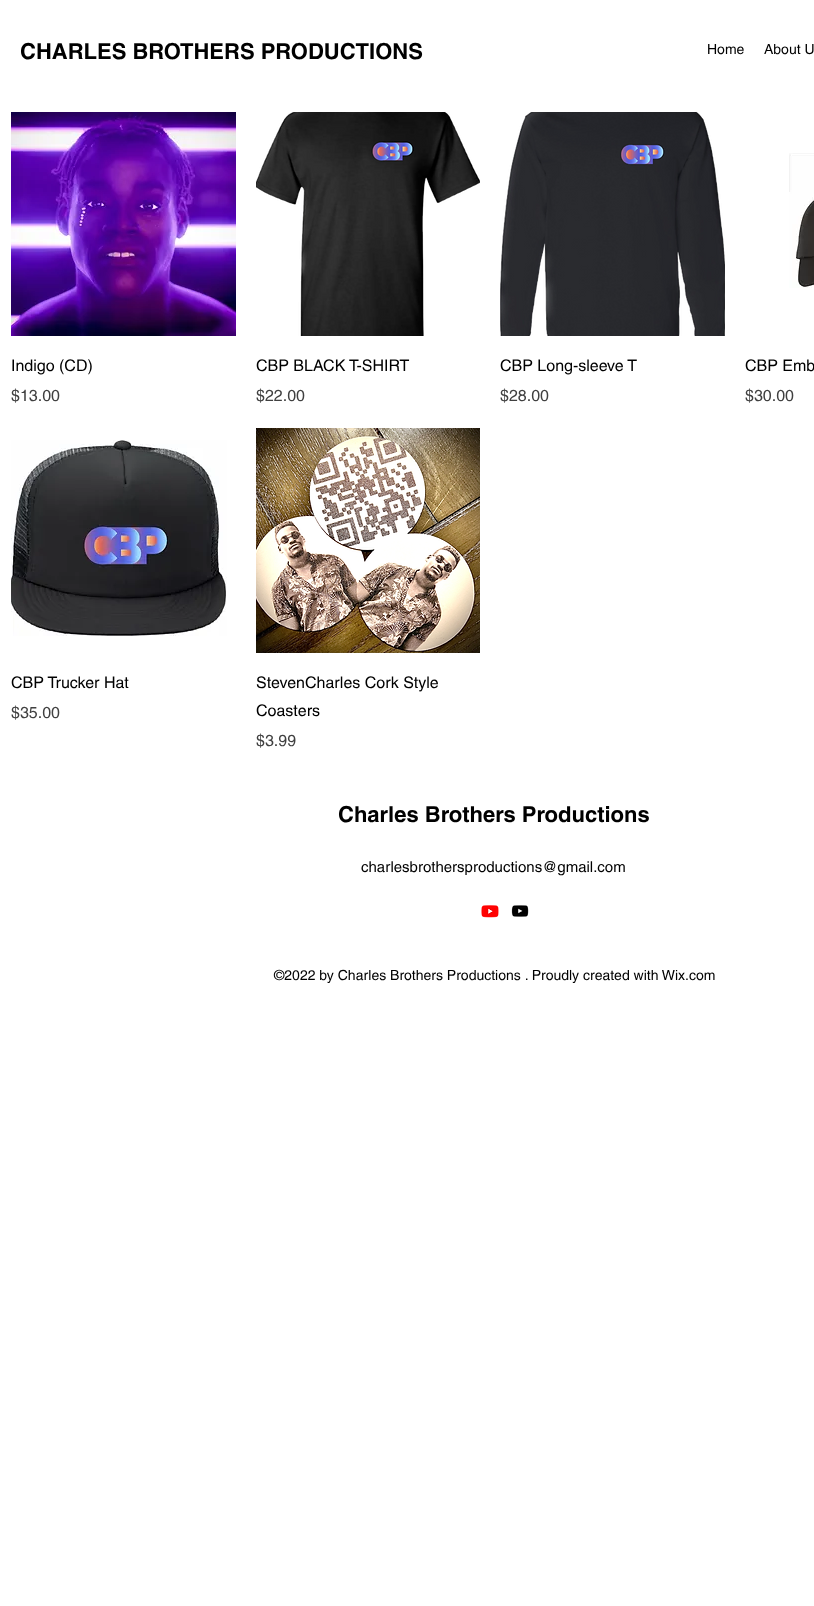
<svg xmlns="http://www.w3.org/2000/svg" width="814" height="1606">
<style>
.a{font:bold 22px helvetica;fill:#000}
.b{font:14px helvetica;fill:#000}
.c{font:16px helvetica;fill:#000}
.d{font:16px helvetica;fill:#404040}
.e{font:15px helvetica;fill:#000}
</style>
<rect width="100%" height="100%" fill="#fff"/>
<image href="1.png" x="11" y="112" width="225" height="224"/>
<image href="2.png" x="256" y="112" width="224" height="224"/>
<image href="3.png" x="500" y="112" width="225" height="224"/>
<image href="4.png" x="789" y="153" width="25" height="135"/>
<image href="5.png" x="11" y="440" width="216" height="196"/>
<image href="6.png" x="256" y="428" width="224" height="225"/>
<image href="7.png" x="481" y="905" width="18" height="13"/>
<image href="8.png" x="511" y="905" width="18" height="12"/>
<text class="a" x="20" y="59">CHARLES BROTHERS PRODUCTIONS</text>
<text class="b" x="707" y="54">Home</text>
<text class="b" x="764" y="54">About U</text>
<text class="c" x="11" y="371">Indigo (CD)</text>
<text class="d" x="11" y="401">$13.00</text>
<text class="c" x="256" y="371">CBP BLACK T-SHIRT</text>
<text class="d" x="256" y="401">$22.00</text>
<text class="c" x="500" y="371">CBP Long-sleeve T</text>
<text class="d" x="500" y="401">$28.00</text>
<text class="c" x="745" y="371">CBP Emb</text>
<text class="d" x="745" y="401">$30.00</text>
<text class="c" x="11" y="688">CBP Trucker Hat</text>
<text class="d" x="11" y="718">$35.00</text>
<text class="c" x="256" y="688">StevenCharles Cork Style</text>
<text class="c" x="256" y="716">Coasters</text>
<text class="d" x="256" y="746">$3.99</text>
<text class="a" x="338" y="822">Charles Brothers Productions</text>
<text class="e" x="361" y="872">charlesbrothersproductions@gmail.com</text>
<text class="b" x="274" y="980">©2022 by Charles Brothers Productions . Proudly created with Wix.com</text>
</svg>
